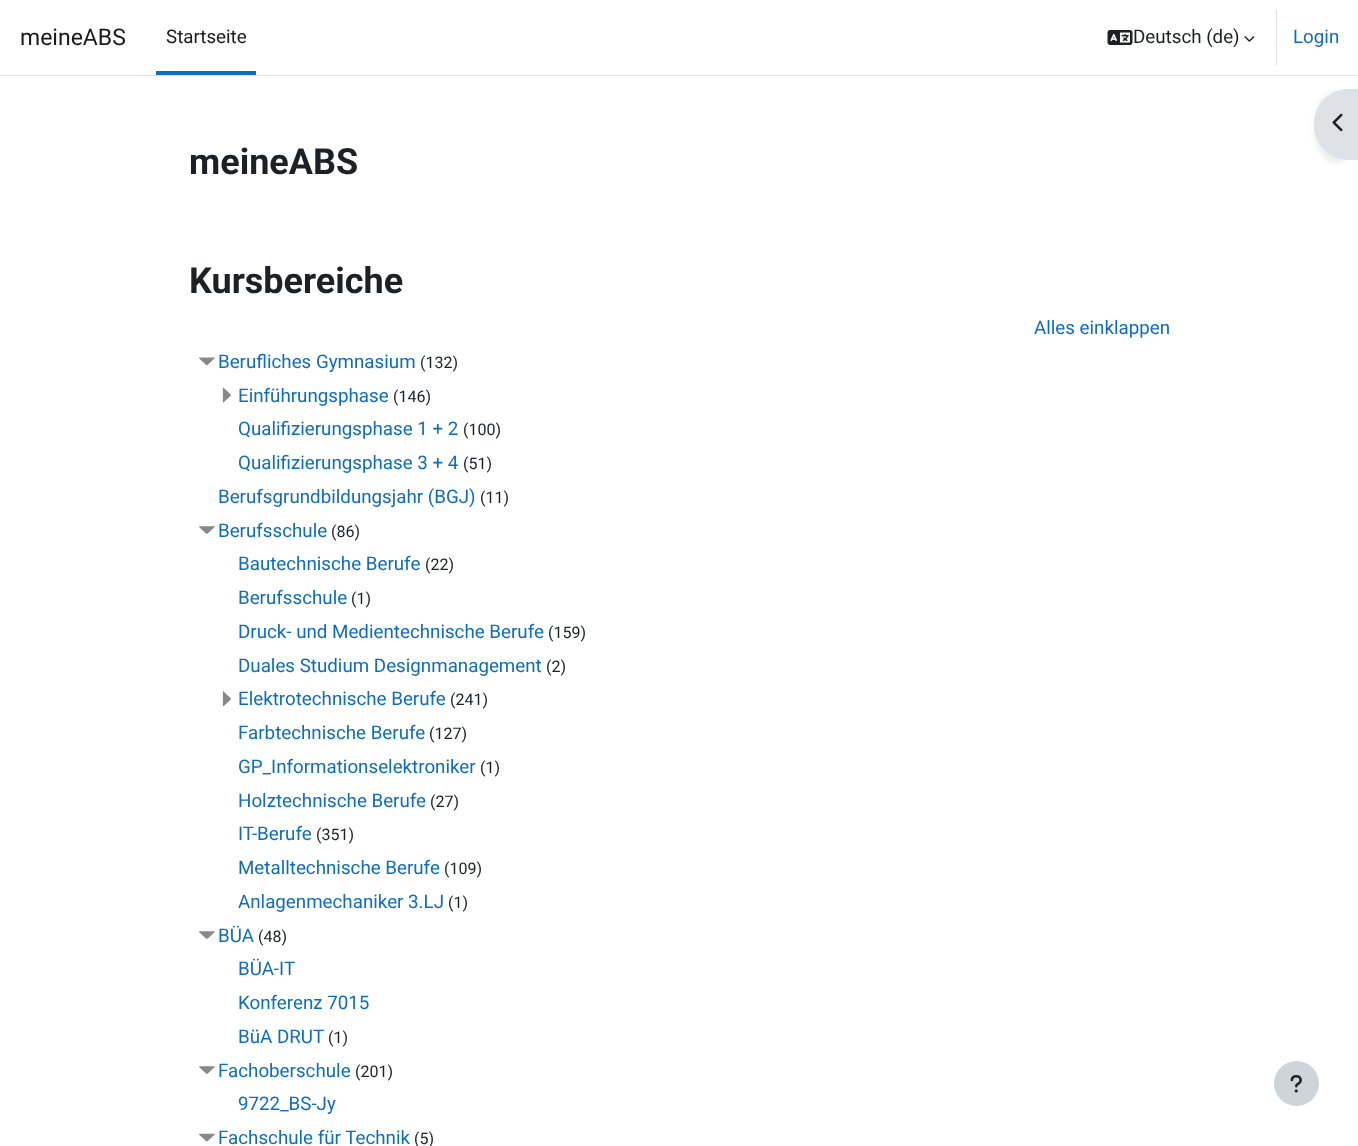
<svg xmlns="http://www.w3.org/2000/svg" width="1358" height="1146">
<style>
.a{font:23px Roboto;fill:#1a1a1a}
.b{font:18.75px Roboto;fill:#1a1a1a}
.c{font:18.75px Roboto;fill:#1d2125}
.d{font:18.75px Roboto;fill:#0f6cbf}
.e{font:bold 36px Roboto;fill:#1d2125}
.f{font:16px Roboto;fill:#1d2125}
</style>
<rect width="100%" height="100%" fill="#fff"/>
<path fill="#dee2e6" d="M0 75h1358v1H0z"/>
<path fill="#0f6cbf" d="M156 71h100v4H156z"/>
<image href="1.png" x="1107" y="30" width="26" height="15"/>
<image href="2.png" x="1244" y="36" width="11" height="6"/>
<path fill="#dee2e6" d="M1276 10h1v56H1276z"/>
<rect fill="#00000012" filter="blur(2.5px)" x="1314" y="91" width="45" height="72" rx="35"/>
<path fill="#dee2e6" d="M1349 89h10v71h-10c-19.5 0-35-15.5-35-35v-1c0-19.5 15.5-35 35-35z"/>
<image href="3.png" x="1332" y="113" width="11" height="19"/>
<image href="4.png" x="199" y="357" width="16" height="8"/>
<image href="5.png" x="222" y="387" width="9" height="16"/>
<image href="6.png" x="199" y="526" width="16" height="8"/>
<image href="7.png" x="222" y="691" width="9" height="16"/>
<image href="6.png" x="199" y="931" width="16" height="8"/>
<image href="6.png" x="199" y="1066" width="16" height="8"/>
<image href="8.png" x="199" y="1133" width="16" height="9"/>
<circle fill="#ced4da" cx="1296.5" cy="1083.5" r="22.5"/>
<image href="9.png" x="1290" y="1075" width="12" height="18"/>
<text class="a" x="20" y="45">meineABS</text>
<text class="b" x="166" y="43">Startseite</text>
<text class="c" x="1133" y="43">Deutsch (de)</text>
<text class="d" x="1293" y="43">Login</text>
<text class="e" x="189" y="174">meineABS</text>
<text class="e" x="189" y="293">Kursbereiche</text>
<text class="d" x="1034" y="334">Alles einklappen</text>
<text class="d" x="218" y="368">Berufliches Gymnasium</text>
<text class="f" x="420" y="368">(132)</text>
<text class="d" x="238" y="402">Einführungsphase</text>
<text class="f" x="393" y="402">(146)</text>
<text class="d" x="238" y="435">Qualifizierungsphase 1 + 2</text>
<text class="f" x="463" y="435">(100)</text>
<text class="d" x="238" y="469">Qualifizierungsphase 3 + 4</text>
<text class="f" x="463" y="469">(51)</text>
<text class="d" x="218" y="503">Berufsgrundbildungsjahr (BGJ)</text>
<text class="f" x="480" y="503">(11)</text>
<text class="d" x="218" y="537">Berufsschule</text>
<text class="f" x="331" y="537">(86)</text>
<text class="d" x="238" y="570">Bautechnische Berufe</text>
<text class="f" x="425" y="570">(22)</text>
<text class="d" x="238" y="604">Berufsschule</text>
<text class="f" x="351" y="604">(1)</text>
<text class="d" x="238" y="638">Druck- und Medientechnische Berufe</text>
<text class="f" x="548" y="638">(159)</text>
<text class="d" x="238" y="672">Duales Studium Designmanagement</text>
<text class="f" x="546" y="672">(2)</text>
<text class="d" x="238" y="705">Elektrotechnische Berufe</text>
<text class="f" x="450" y="705">(241)</text>
<text class="d" x="238" y="739">Farbtechnische Berufe</text>
<text class="f" x="429" y="739">(127)</text>
<text class="d" x="238" y="773">GP_Informationselektroniker</text>
<text class="f" x="480" y="773">(1)</text>
<text class="d" x="238" y="807">Holztechnische Berufe</text>
<text class="f" x="430" y="807">(27)</text>
<text class="d" x="238" y="840">IT-Berufe</text>
<text class="f" x="316" y="840">(351)</text>
<text class="d" x="238" y="874">Metalltechnische Berufe</text>
<text class="f" x="444" y="874">(109)</text>
<text class="d" x="238" y="908">Anlagenmechaniker 3.LJ</text>
<text class="f" x="448" y="908">(1)</text>
<text class="d" x="218" y="942">BÜA</text>
<text class="f" x="258" y="942">(48)</text>
<text class="d" x="238" y="975">BÜA-IT</text>
<text class="d" x="238" y="1009">Konferenz 7015</text>
<text class="d" x="238" y="1043">BüA DRUT</text>
<text class="f" x="328" y="1043">(1)</text>
<text class="d" x="218" y="1077">Fachoberschule</text>
<text class="f" x="355" y="1077">(201)</text>
<text class="d" x="238" y="1110">9722_BS-Jy</text>
<text class="d" x="218" y="1144">Fachschule für Technik</text>
<text class="f" x="414" y="1144">(5)</text>
</svg>
